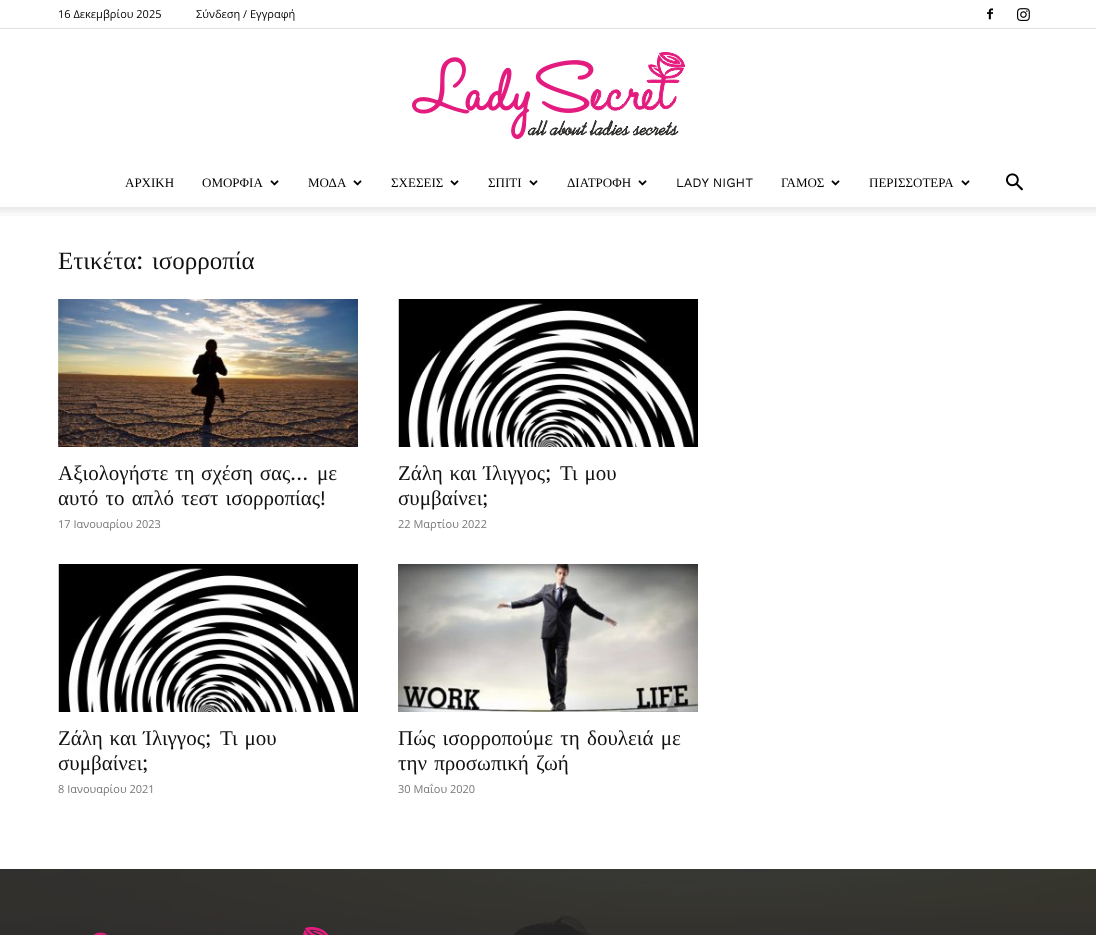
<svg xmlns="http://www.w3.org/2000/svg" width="1096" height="935">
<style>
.a{font:11px Open Sans;fill:#000}
.b{font:13px Liberation Serif;fill:#000}
.c{font:13px Work Sans;fill:#000}
.d{font:25px Liberation Serif;fill:#111}
.e{font:25px Work Sans;fill:#111}
.f{font:21px Liberation Serif;fill:#111}
.g{font:21px Work Sans;fill:#111}
.h{font:11px Open Sans;fill:#767676}
</style>
<rect width="100%" height="100%" fill="#fff"/>
<path fill="#e0e0e0" d="M0 28h1096v1H0z"/>
<image href="1.png" x="987" y="8" width="6" height="12"/>
<image href="2.png" x="1017" y="8" width="13" height="13"/>
<image href="3.png" x="412" y="52" width="273" height="87"/>
<image href="4.png" x="270" y="180" width="9" height="6"/>
<image href="4.png" x="353" y="180" width="9" height="6"/>
<image href="4.png" x="450" y="180" width="9" height="6"/>
<image href="4.png" x="529" y="180" width="9" height="6"/>
<image href="4.png" x="638" y="180" width="9" height="6"/>
<image href="4.png" x="831" y="180" width="9" height="6"/>
<image href="4.png" x="961" y="180" width="9" height="6"/>
<image href="5.png" x="1006" y="173" width="17" height="18"/>
<image href="6.png" x="0" y="207" width="1096" height="9"/>
<image href="7.png" x="58" y="299" width="300" height="148"/>
<image href="8.png" x="398" y="299" width="300" height="148"/>
<image href="8.png" x="58" y="564" width="300" height="148"/>
<image href="9.png" x="398" y="564" width="300" height="148"/>
<path fill="#222" d="M0 869h1096v66H0z"/>
<image href="10.png" x="0" y="869" width="1096" height="66"/>
<image href="11.png" x="93" y="927" width="236" height="8"/>
<text class="a" x="58" y="18">16 Δεκεμβρίου 2025</text>
<text class="a" x="196" y="18">Σύνδεση / Εγγραφή</text>
<text class="b" x="125" y="187">ΑΡΧΙΚΗ</text>
<text class="b" x="202" y="187">ΟΜΟΡΦΙΑ</text>
<text class="b" x="308" y="187">ΜΟΔΑ</text>
<text class="b" x="391" y="187">ΣΧΕΣΕΙΣ</text>
<text class="b" x="488" y="187">ΣΠΙΤΙ</text>
<text class="b" x="567" y="187">ΔΙΑΤΡΟΦΗ</text>
<text class="c" x="676" y="187">LADY NIGHT</text>
<text class="b" x="781" y="187">ΓΑΜΟΣ</text>
<text class="b" x="869" y="187">ΠΕΡΙΣΣΟΤΕΡΑ</text>
<text class="d" x="58" y="269">Ετικέτα</text>
<text class="e" x="136" y="269">:</text>
<text class="d" x="152" y="269">ισορροπία</text>
<text class="f" x="58" y="480" word-spacing="1.5">Αξιολογήστε τη σχέση σας</text>
<text class="g" x="290" y="480">…</text>
<text class="f" x="317" y="480">με</text>
<text class="f" x="58" y="505" word-spacing="2">αυτό το απλό τεστ ισορροπίας</text>
<text class="g" x="320" y="505">!</text>
<text class="h" x="58" y="528">17 Ιανουαρίου 2023</text>
<text class="f" x="398" y="480" word-spacing="1.5">Ζάλη και Ίλιγγος</text>
<text class="g" x="545" y="480">;</text>
<text class="f" x="560" y="480" word-spacing="1.5">Τι μου</text>
<text class="f" x="398" y="505">συμβαίνει</text>
<text class="g" x="482" y="505">;</text>
<text class="h" x="398" y="528">22 Μαρτίου 2022</text>
<text class="f" x="58" y="745" word-spacing="1.5">Ζάλη και Ίλιγγος</text>
<text class="g" x="205" y="745">;</text>
<text class="f" x="220" y="745" word-spacing="1.5">Τι μου</text>
<text class="f" x="58" y="770">συμβαίνει</text>
<text class="g" x="142" y="770">;</text>
<text class="h" x="58" y="793">8 Ιανουαρίου 2021</text>
<text class="f" x="398" y="745" word-spacing="2">Πώς ισορροπούμε τη δουλειά με</text>
<text class="f" x="398" y="770" word-spacing="2">την προσωπική ζωή</text>
<text class="h" x="398" y="793">30 Μαΐου 2020</text>
</svg>
